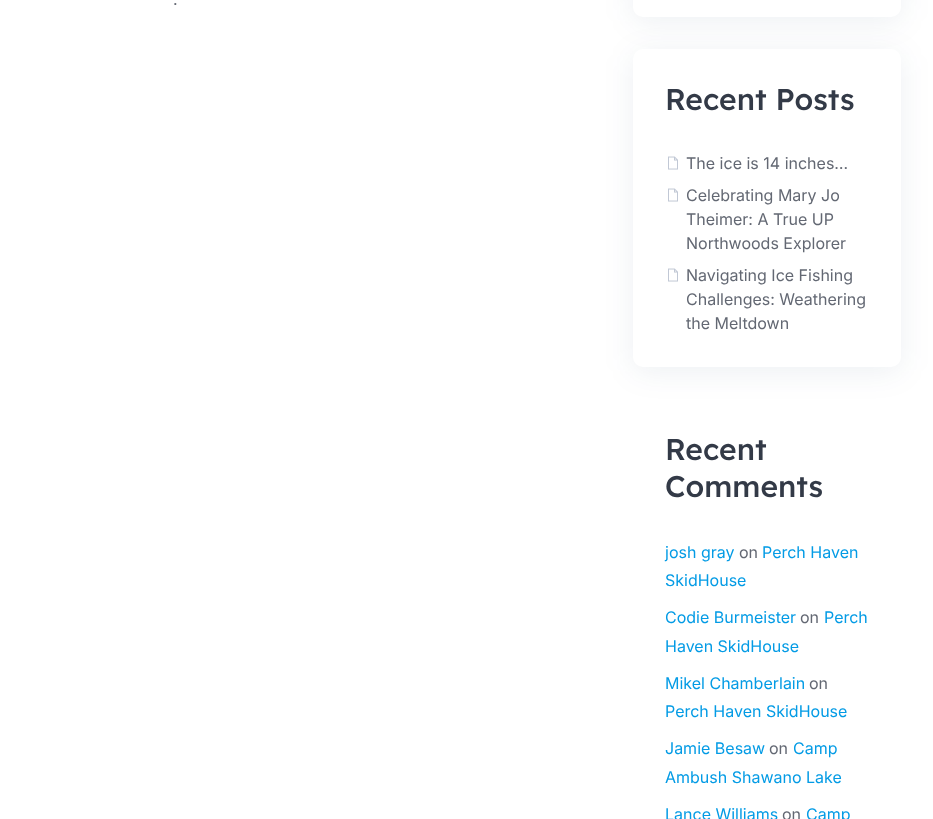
<svg xmlns="http://www.w3.org/2000/svg" width="933" height="819">
<style>
.a{font:16px Inter;fill:#636873}
.b{font:500 30px Lexend;fill:#333a47}
.c{font:16px Inter;fill:#039be5}
</style>
<rect width="100%" height="100%" fill="#fff"/>
<rect fill="#07245612" filter="blur(15px)" x="633" y="-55" width="268" height="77" rx="10"/>
<rect fill="#fff" x="633" y="-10" width="268" height="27" rx="10"/>
<rect fill="#07245612" filter="blur(15px)" x="633" y="54" width="268" height="318" rx="10"/>
<rect fill="#fff" x="633" y="49" width="268" height="318" rx="10"/>
<image href="1.png" x="668" y="156" width="10" height="14"/>
<image href="1.png" x="668" y="188" width="10" height="14"/>
<image href="1.png" x="668" y="268" width="10" height="14"/>
<text class="a" x="173" y="5">.</text>
<text class="b" x="665" y="110">Recent Posts</text>
<text class="a" x="686" y="169">The ice is 14 inches…</text>
<text class="a" x="686" y="201">Celebrating Mary Jo</text>
<text class="a" x="686" y="225">Theimer: A True UP</text>
<text class="a" x="686" y="249">Northwoods Explorer</text>
<text class="a" x="686" y="281">Navigating Ice Fishing</text>
<text class="a" x="686" y="305">Challenges: Weathering</text>
<text class="a" x="686" y="329">the Meltdown</text>
<text class="b" x="665" y="460">Recent</text>
<text class="b" x="665" y="497">Comments</text>
<text class="c" x="665" y="558">josh gray</text>
<text class="a" x="739" y="558">on</text>
<text class="c" x="762" y="558">Perch Haven</text>
<text class="c" x="665" y="586">SkidHouse</text>
<text class="c" x="665" y="623">Codie Burmeister</text>
<text class="a" x="800" y="623">on</text>
<text class="c" x="824" y="623">Perch</text>
<text class="c" x="665" y="652">Haven SkidHouse</text>
<text class="c" x="665" y="689">Mikel Chamberlain</text>
<text class="a" x="809" y="689">on</text>
<text class="c" x="665" y="717">Perch Haven SkidHouse</text>
<text class="c" x="665" y="754">Jamie Besaw</text>
<text class="a" x="769" y="754">on</text>
<text class="c" x="793" y="754">Camp</text>
<text class="c" x="665" y="783">Ambush Shawano Lake</text>
<text class="c" x="665" y="820">Lance Williams</text>
<text class="a" x="782" y="820">on</text>
<text class="c" x="806" y="820">Camp</text>
</svg>
